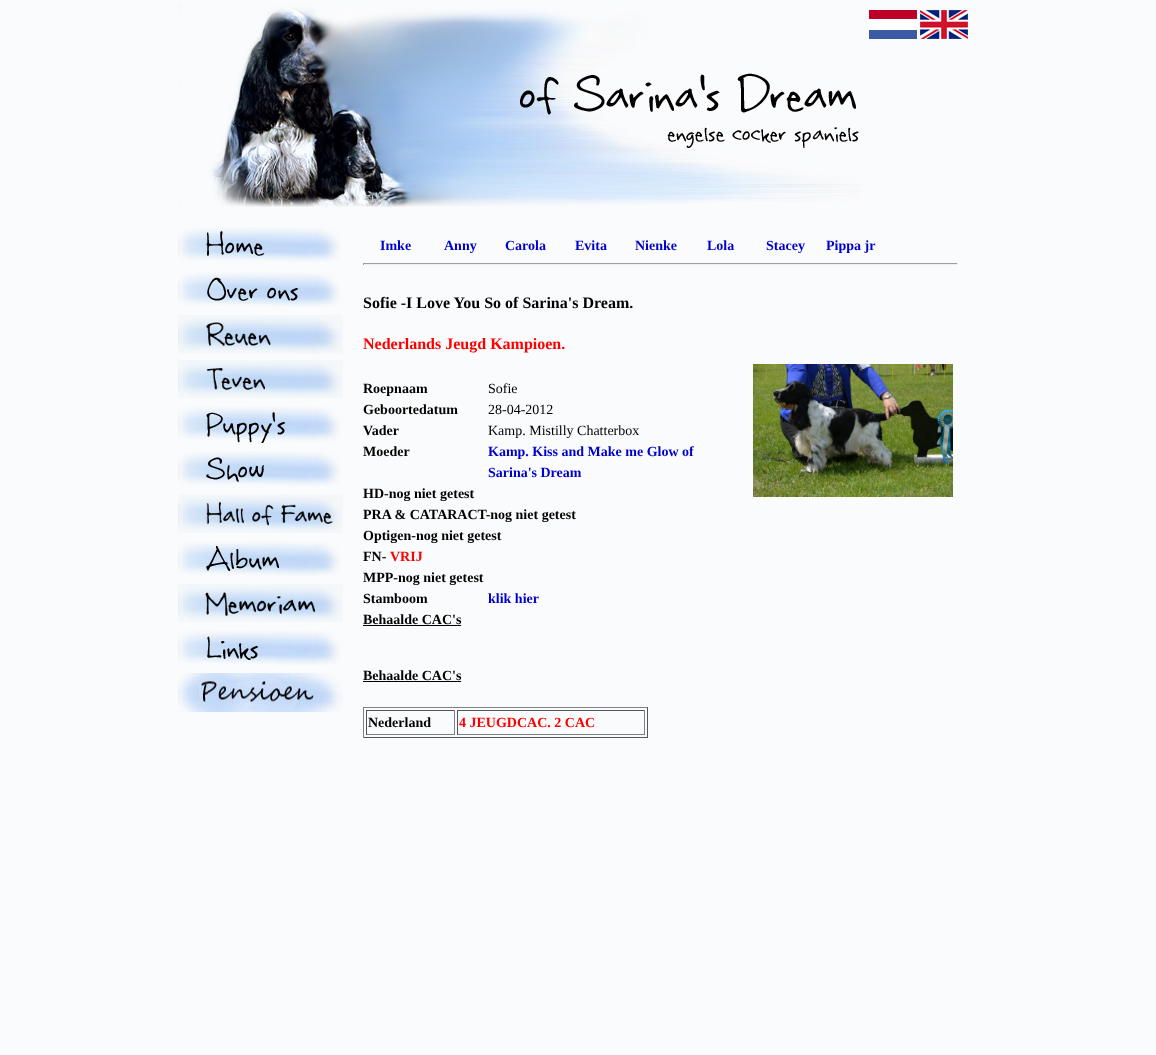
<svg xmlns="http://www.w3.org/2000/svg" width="1156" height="1055">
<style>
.a{font:bold 14px Liberation Serif;fill:#00c}
.b{font:bold 16px Liberation Serif;fill:#000}
.c{font:bold 16px Liberation Serif;fill:#f00}
.d{font:bold 14px Liberation Serif;fill:#000}
.e{font:14px Liberation Serif;fill:#000}
.f{font:bold 14px Liberation Serif;fill:#f00}
</style>
<rect width="100%" height="100%" fill="#fafbfc"/>
<image href="1.png" x="178" y="3" width="685" height="204"/>
<image href="2.png" x="869" y="10" width="48" height="29"/>
<image href="3.png" x="920" y="10" width="48" height="29"/>
<image href="4.png" x="178" y="227" width="162" height="35"/>
<image href="5.png" x="178" y="272" width="162" height="35"/>
<image href="6.png" x="178" y="315" width="165" height="39"/>
<image href="7.png" x="178" y="360" width="165" height="38"/>
<image href="8.png" x="178" y="406" width="162" height="37"/>
<image href="9.png" x="178" y="451" width="162" height="35"/>
<image href="10.png" x="178" y="494" width="165" height="39"/>
<image href="11.png" x="178" y="541" width="162" height="35"/>
<image href="12.png" x="178" y="584" width="165" height="38"/>
<image href="13.png" x="178" y="630" width="162" height="35"/>
<image href="14.png" x="178" y="673" width="165" height="39"/>
<path fill="#9f9f9f" d="M363 263h595v1H363z"/>
<path fill="#eee" d="M957 263h1v2H957z"/>
<path fill="#eee" d="M363 264h595v1H363z"/>
<path fill="#9f9f9f" d="M363 263h1v2H363z"/>
<path fill="#000" d="M363 625h98v1H363z"/>
<path fill="#000" d="M363 681h98v1H363z"/>
<path fill="#808080" d="M363 707h285v1H363z"/>
<path fill="#555" d="M647 707h1v31H647z"/>
<path fill="#555" d="M363 737h285v1H363z"/>
<path fill="#808080" d="M363 707h1v31H363z"/>
<path fill="#555" d="M366 710h89v1H366z"/>
<path fill="#808080" d="M454 710h1v25H454z"/>
<path fill="#808080" d="M366 734h89v1H366z"/>
<path fill="#555" d="M366 710h1v25H366z"/>
<path fill="#555" d="M457 710h188v1H457z"/>
<path fill="#808080" d="M644 710h1v25H644z"/>
<path fill="#808080" d="M457 734h188v1H457z"/>
<path fill="#555" d="M457 710h1v25H457z"/>
<image href="15.png" x="753" y="364" width="200" height="133"/>
<text class="a" x="380" y="250">Imke</text>
<text class="a" x="444" y="250">Anny</text>
<text class="a" x="505" y="250">Carola</text>
<text class="a" x="575" y="250">Evita</text>
<text class="a" x="635" y="250">Nienke</text>
<text class="a" x="707" y="250">Lola</text>
<text class="a" x="766" y="250">Stacey</text>
<text class="a" x="826" y="250">Pippa jr</text>
<text class="b" x="363" y="308">Sofie -I Love You So of Sarina's Dream.</text>
<text class="c" x="363" y="349">Nederlands Jeugd Kampioen.</text>
<text class="d" x="363" y="393">Roepnaam</text>
<text class="e" x="488" y="393">Sofie</text>
<text class="d" x="363" y="414">Geboortedatum</text>
<text class="e" x="488" y="414">28-04-2012</text>
<text class="d" x="363" y="435">Vader</text>
<text class="e" x="488" y="435">Kamp. Mistilly Chatterbox</text>
<text class="d" x="363" y="456">Moeder</text>
<text class="a" x="488" y="456">Kamp. Kiss and Make me Glow of</text>
<text class="a" x="488" y="477">Sarina's Dream</text>
<text class="d" x="363" y="498">HD-nog niet getest</text>
<text class="d" x="363" y="519">PRA &amp; CATARACT-nog niet getest</text>
<text class="d" x="363" y="540">Optigen-nog niet getest</text>
<text class="d" x="363" y="561">FN-</text>
<text class="f" x="390" y="561">VRIJ</text>
<text class="d" x="363" y="582">MPP-nog niet getest</text>
<text class="d" x="363" y="603">Stamboom</text>
<text class="a" x="488" y="603">klik hier</text>
<text class="d" x="363" y="624">Behaalde CAC's</text>
<text class="d" x="363" y="680">Behaalde CAC's</text>
<text class="d" x="368" y="727">Nederland</text>
<text class="f" x="459" y="727">4 JEUGDCAC. 2 CAC</text>
</svg>
